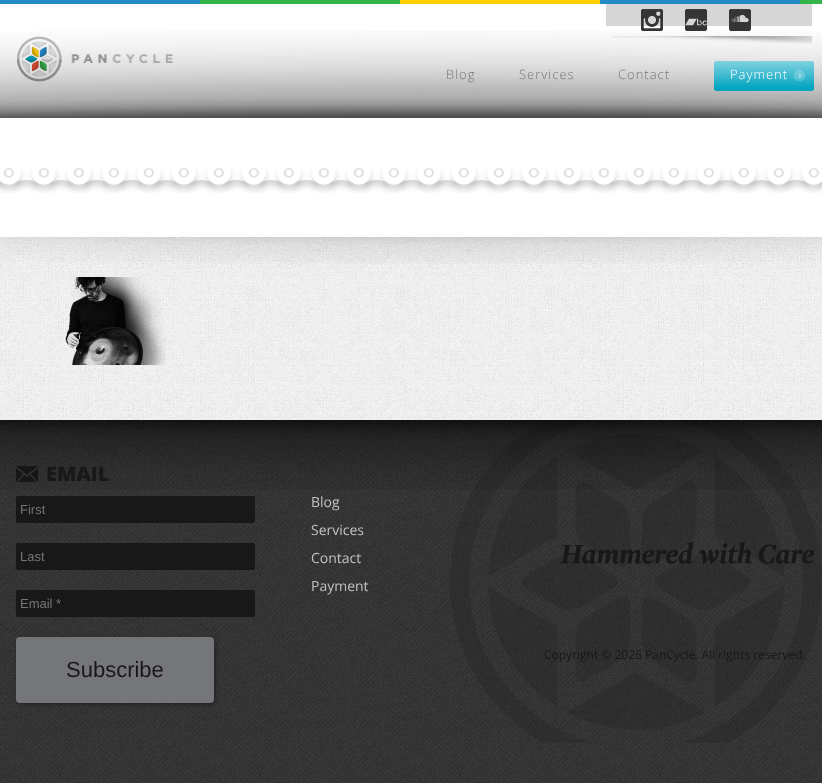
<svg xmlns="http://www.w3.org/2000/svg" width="822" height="783">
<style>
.a{font:300 13px Open Sans;letter-spacing:1px;fill:#757575}
.b{font:300 13px Open Sans;letter-spacing:1px;fill:#fff}
.c{font:800 20px Open Sans;fill:#181818}
.d{font:13px Liberation Sans;fill:#757575}
.e{font:22px Liberation Sans;fill:#181818}
.f{font:14px Open Sans;fill:#c4c0c0}
.g{font:12px Open Sans;fill:#181818}
</style>
<rect width="100%" height="100%" fill="#fff"/>
<image href="1.png" x="0" y="420" width="822" height="363"/>
<image href="4.png" x="612" y="36" width="200" height="8"/>
<image href="8.png" x="17" y="36" width="156" height="46"/>
<image href="2.png" x="0" y="31" width="822" height="87"/>
<image href="3.png" x="0" y="0" width="822" height="4"/>
<path fill="#d6d6d6" d="M606 4h206v22H606z"/>
<image href="5.png" x="641" y="9" width="22" height="22"/>
<image href="6.png" x="685" y="9" width="22" height="22"/>
<image href="7.png" x="729" y="9" width="22" height="22"/>
<image href="9.png" x="714" y="61" width="100" height="30"/>
<image href="10.png" x="0" y="167" width="822" height="26"/>
<image href="11.png" x="0" y="237" width="822" height="183"/>
<image href="12.png" x="0" y="237" width="822" height="27"/>
<image href="13.png" x="65" y="277" width="101" height="88"/>
<image href="14.png" x="450" y="420" width="372" height="323"/>
<image href="15.png" x="0" y="420" width="822" height="70"/>
<image href="16.png" x="16" y="466" width="22" height="16"/>
<rect fill="#181818" x="16" y="496" width="239" height="27" rx="2"/>
<rect fill="#181818" x="16" y="543" width="239" height="27" rx="2"/>
<rect fill="#181818" x="16" y="590" width="239" height="27" rx="2"/>
<rect fill="#0000004d" filter="blur(2px)" x="18" y="639" width="198" height="66" rx="4"/>
<rect fill="#75767a" x="16" y="637" width="198" height="66" rx="4"/>
<image href="17.png" x="560" y="542" width="254" height="22"/>
<text class="a" x="446" y="79">Blog</text>
<text class="a" x="519" y="79">Services</text>
<text class="a" x="618" y="79">Contact</text>
<text class="b" x="730" y="79">Payment</text>
<text class="c" x="46" y="481">EMAIL</text>
<text class="d" x="20" y="514">First</text>
<text class="d" x="20" y="561">Last</text>
<text class="d" x="20" y="608">Email *</text>
<text class="e" x="66" y="677">Subscribe</text>
<text class="f" x="311" y="507">Blog</text>
<text class="f" x="311" y="535">Services</text>
<text class="f" x="311" y="563">Contact</text>
<text class="f" x="311" y="591">Payment</text>
<text class="g" x="544" y="659">Copyright © 2026 PanCycle. All rights reserved.</text>
</svg>
